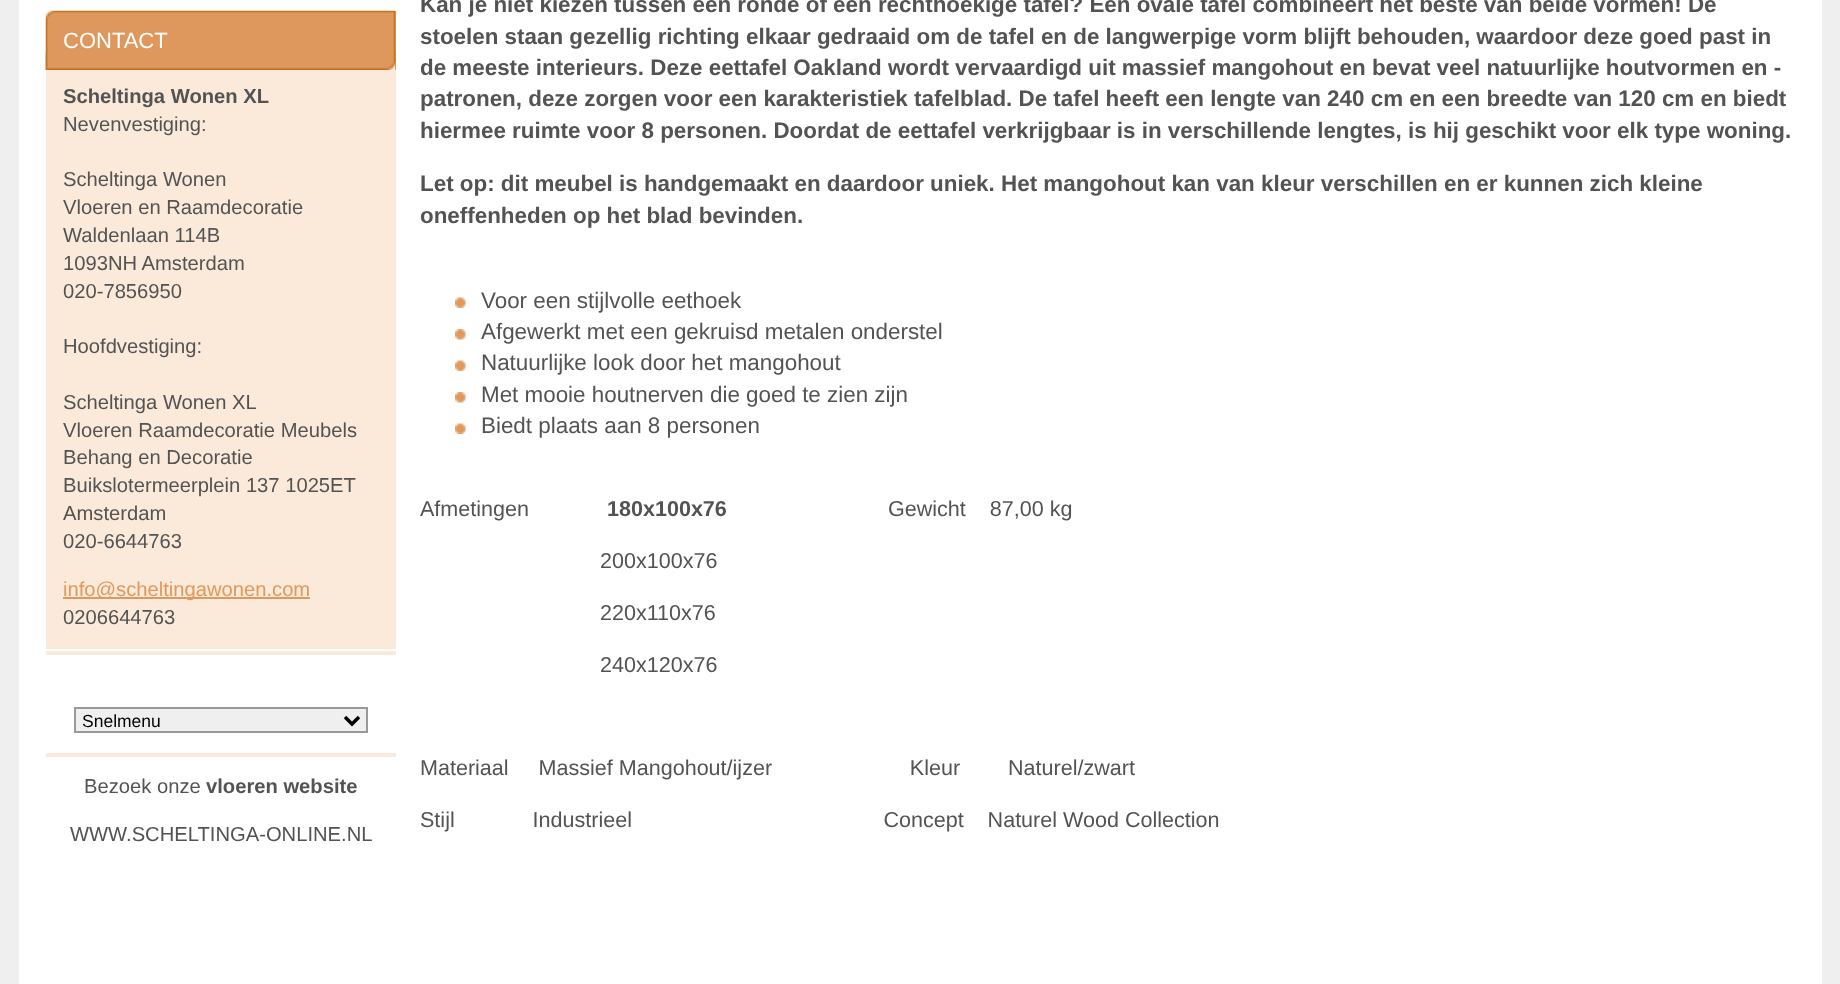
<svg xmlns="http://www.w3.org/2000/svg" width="1840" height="984">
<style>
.a{font:22px Liberation Sans;fill:#fff}
.b{font:bold 20.2px Liberation Sans;fill:#535353}
.c{font:20.2px Liberation Sans;fill:#535353}
.d{font:20.2px Liberation Sans;fill:#e0985c}
.e{font:17.5px Liberation Sans;fill:#000}
.f{font:bold 22.4px Liberation Sans;fill:#535353}
.g{font:22.4px Liberation Sans;fill:#535353}
.h{font:21.55px Liberation Sans;fill:#535353}
.i{font:bold 21.55px Liberation Sans;fill:#535353}
</style>
<rect width="100%" height="100%" fill="#efefef"/>
<path fill="#fff" d="M19 0h1803v984H19z"/>
<path fill="#fbead9" d="M46 651h350v4H46z"/>
<path fill="#fbead9" d="M46 70h350v579H46z"/>
<path fill="#e0985c" d="M395 11h1v59H395z"/>
<image href="1.png" x="45" y="10" width="351" height="60"/>
<image href="2.png" x="45" y="52" width="351" height="18"/>
<path fill="#e0985c" d="M63 597h158v2H63z"/>
<path fill="#e0985c" d="M221 597h89v2H221z"/>
<path fill="#fbead9" d="M46 753h350v4H46z"/>
<path fill="#efefef" stroke="#999" stroke-width="2" d="M75 708h292v24H75z"/>
<path fill="none" stroke="#000" stroke-width="3.5" d="M345 717l7 7l7-7"/>
<image href="3.png" x="455" y="297" width="11" height="11"/>
<image href="4.png" x="455" y="329" width="11" height="11"/>
<image href="3.png" x="455" y="360" width="11" height="11"/>
<image href="4.png" x="455" y="392" width="11" height="11"/>
<image href="3.png" x="455" y="423" width="11" height="11"/>
<text class="a" x="63" y="48">CONTACT</text>
<text class="b" x="63" y="103">Scheltinga Wonen XL</text>
<text class="c" x="63" y="131">Nevenvestiging:</text>
<text class="c" x="63" y="186">Scheltinga Wonen</text>
<text class="c" x="63" y="214">Vloeren en Raamdecoratie</text>
<text class="c" x="63" y="242">Waldenlaan 114B</text>
<text class="c" x="63" y="270">1093NH Amsterdam</text>
<text class="c" x="63" y="298">020-7856950</text>
<text class="c" x="63" y="353">Hoofdvestiging:</text>
<text class="c" x="63" y="409">Scheltinga Wonen XL</text>
<text class="c" x="63" y="437">Vloeren Raamdecoratie Meubels</text>
<text class="c" x="63" y="464">Behang en Decoratie</text>
<text class="c" x="63" y="492">Buikslotermeerplein 137 1025ET</text>
<text class="c" x="63" y="520">Amsterdam</text>
<text class="c" x="63" y="548">020-6644763</text>
<text class="d" x="63" y="596">info@scheltingawonen.com</text>
<text class="c" x="63" y="624">0206644763</text>
<text class="e" x="82" y="727">Snelmenu</text>
<text class="c" x="84" y="793">Bezoek onze</text>
<text class="b" x="206" y="793">vloeren website</text>
<text class="c" x="70" y="841">WWW.SCHELTINGA-ONLINE.NL</text>
<text class="f" x="420" y="12">Kan je niet kiezen tussen een ronde of een rechthoekige tafel? Een ovale tafel combineert het beste van beide vormen! De</text>
<text class="f" x="420" y="44">stoelen staan gezellig richting elkaar gedraaid om de tafel en de langwerpige vorm blijft behouden, waardoor deze goed past in</text>
<text class="f" x="420" y="75">de meeste interieurs. Deze eettafel Oakland wordt vervaardigd uit massief mangohout en bevat veel natuurlijke houtvormen en -</text>
<text class="f" x="420" y="106">patronen, deze zorgen voor een karakteristiek tafelblad. De tafel heeft een lengte van 240 cm en een breedte van 120 cm en biedt</text>
<text class="f" x="420" y="138">hiermee ruimte voor 8 personen. Doordat de eettafel verkrijgbaar is in verschillende lengtes, is hij geschikt voor elk type woning.</text>
<text class="f" x="420" y="191">Let op: dit meubel is handgemaakt en daardoor uniek. Het mangohout kan van kleur verschillen en er kunnen zich kleine</text>
<text class="f" x="420" y="223">oneffenheden op het blad bevinden.</text>
<text class="g" x="481" y="308">Voor een stijlvolle eethoek</text>
<text class="g" x="481" y="339">Afgewerkt met een gekruisd metalen onderstel</text>
<text class="g" x="481" y="370">Natuurlijke look door het mangohout</text>
<text class="g" x="481" y="402">Met mooie houtnerven die goed te zien zijn</text>
<text class="g" x="481" y="433">Biedt plaats aan 8 personen</text>
<text class="h" x="420" y="516">Afmetingen</text>
<text class="i" x="607" y="516">180x100x76</text>
<text class="h" xml:space="preserve" x="888" y="516">Gewicht    87,00 kg</text>
<text class="h" x="600" y="568">200x100x76</text>
<text class="h" x="600" y="620">220x110x76</text>
<text class="h" x="600" y="672">240x120x76</text>
<text class="h" xml:space="preserve" x="420" y="775">Materiaal     Massief Mangohout/ijzer                       Kleur        Naturel/zwart</text>
<text class="h" xml:space="preserve" x="420" y="827">Stijl             Industrieel                                          Concept    Naturel Wood Collection</text>
</svg>
